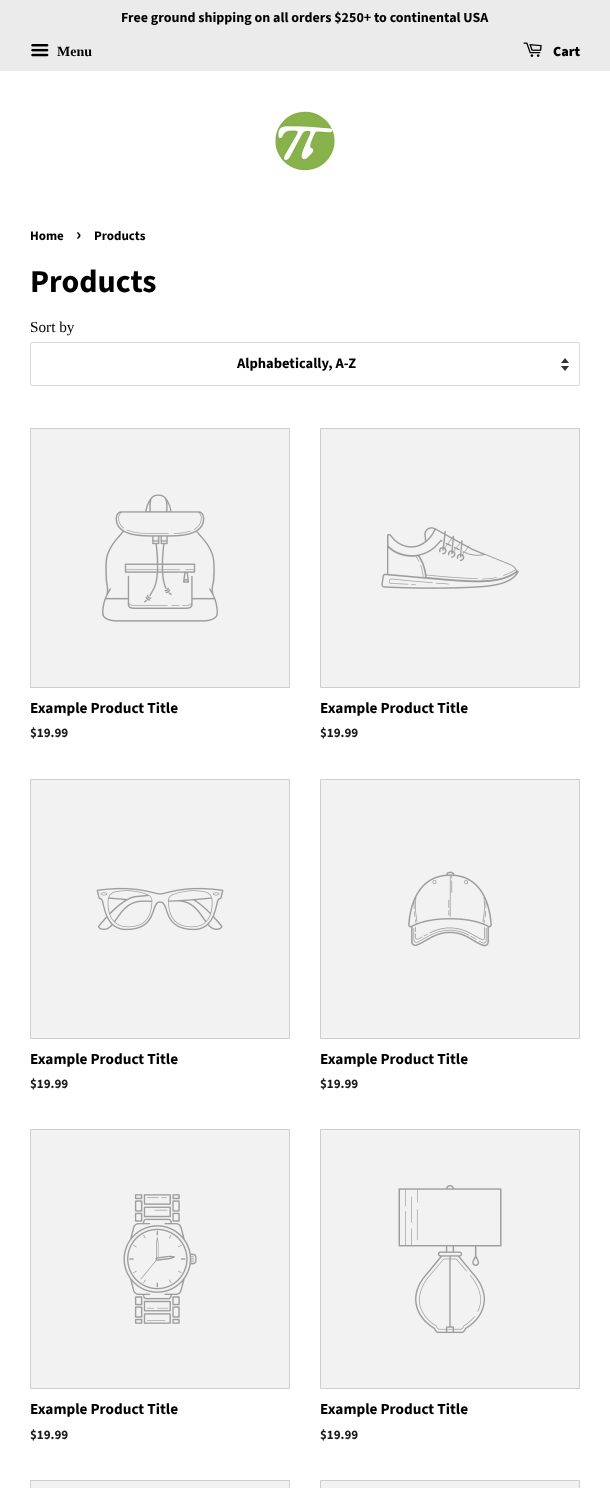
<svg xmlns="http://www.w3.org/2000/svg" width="610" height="1488">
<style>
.a{font:bold 14px Source Sans Pro;fill:#000}
.b{font:bold 14px Liberation Serif;fill:#000}
.c{font:900 14px Source Sans Pro;fill:#000}
.d{font:bold 13px Source Sans Pro;fill:#000}
.e{font:bold 18px Source Sans Pro;fill:#000}
.f{font:bold 32px Source Sans Pro;fill:#000}
.g{font:15.25px Liberation Serif;fill:#000}
.h{font:bold 14.5px Source Sans Pro;fill:#000}
.i{font:bold 15.25px Source Sans Pro;fill:#000}
.j{font:bold 13px Source Sans Pro;fill:#1a1a1a}
</style>
<rect width="100%" height="100%" fill="#fff"/>
<path fill="#ebebeb" d="M0 0h610v71H0z"/>
<image href="1.png" x="31" y="44" width="18" height="13"/>
<image href="2.png" x="523" y="42" width="19" height="15"/>
<image href="3.png" x="275" y="111" width="60" height="60"/>
<image href="4.png" x="561" y="358" width="8" height="13"/>
<rect fill="none" stroke="#d9d9d9" x="30.5" y="342.5" width="549" height="43" rx="1.5"/>
<path fill="#f2f2f2" stroke="#cecece" d="M30.5 428.5h259v259H30.5z"/>
<image href="5.png" x="102" y="494" width="116" height="128"/>
<path fill="#f2f2f2" stroke="#cecece" d="M320.5 428.5h259v259H320.5z"/>
<image href="6.png" x="381" y="527" width="138" height="62"/>
<path fill="#f2f2f2" stroke="#cecece" d="M30.5 779.5h259v259H30.5z"/>
<image href="7.png" x="96" y="887" width="128" height="44"/>
<path fill="#f2f2f2" stroke="#cecece" d="M320.5 779.5h259v259H320.5z"/>
<image href="8.png" x="408" y="871" width="84" height="76"/>
<path fill="#f2f2f2" stroke="#cecece" d="M30.5 1129.5h259v259H30.5z"/>
<image href="9.png" x="123" y="1194" width="74" height="130"/>
<path fill="#f2f2f2" stroke="#cecece" d="M320.5 1129.5h259v259H320.5z"/>
<image href="10.png" x="398" y="1185" width="104" height="149"/>
<path fill="#f2f2f2" stroke="#cecece" d="M30.5 1480.5h259v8H30.5z"/>
<path fill="#f2f2f2" stroke="#cecece" d="M320.5 1480.5h259v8H320.5z"/>
<text class="a" x="121" y="22">Free ground shipping on all orders $250+ to continental USA</text>
<text class="b" x="57" y="56">Menu</text>
<text class="c" x="553" y="56">Cart</text>
<text class="d" x="30" y="240">Home</text>
<text class="e" x="76" y="240">›</text>
<text class="d" x="94" y="240">Products</text>
<text class="f" x="30" y="292">Products</text>
<text class="g" x="30" y="332">Sort by</text>
<text class="h" x="237" y="368">Alphabetically, A-Z</text>
<text class="i" x="30" y="713">Example Product Title</text>
<text class="j" x="30" y="737">$19.99</text>
<text class="i" x="320" y="713">Example Product Title</text>
<text class="j" x="320" y="737">$19.99</text>
<text class="i" x="30" y="1064">Example Product Title</text>
<text class="j" x="30" y="1088">$19.99</text>
<text class="i" x="320" y="1064">Example Product Title</text>
<text class="j" x="320" y="1088">$19.99</text>
<text class="i" x="30" y="1414">Example Product Title</text>
<text class="j" x="30" y="1439">$19.99</text>
<text class="i" x="320" y="1414">Example Product Title</text>
<text class="j" x="320" y="1439">$19.99</text>
</svg>
